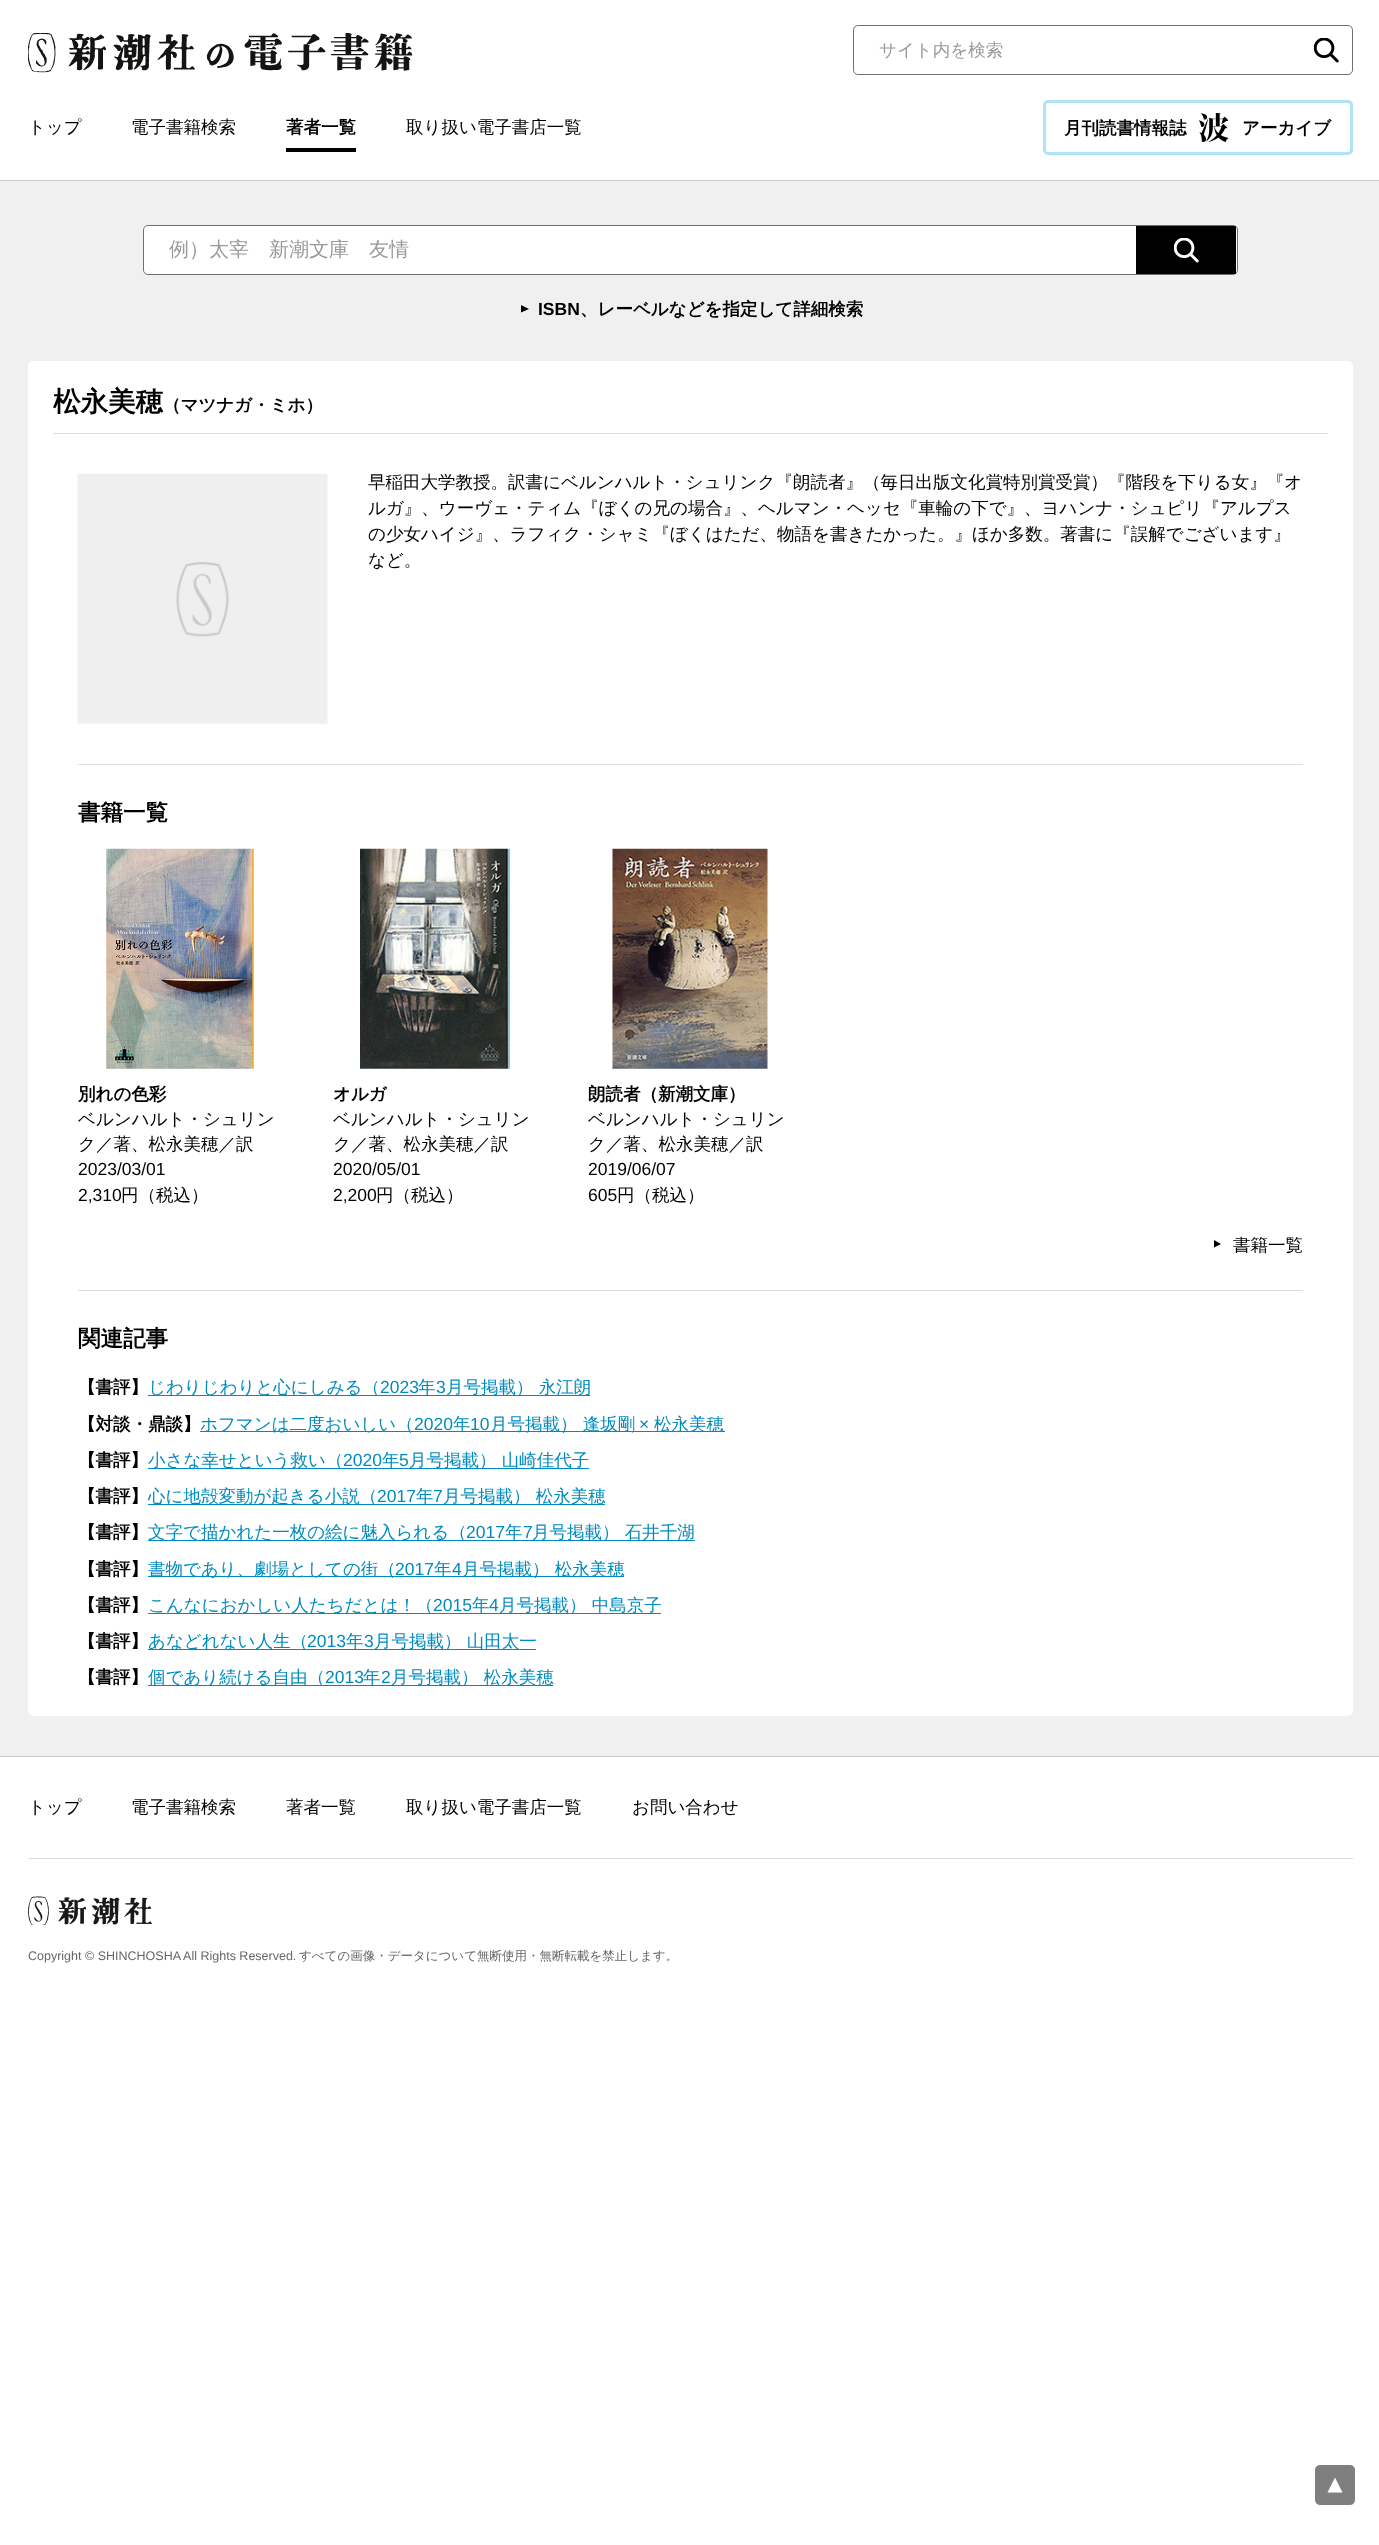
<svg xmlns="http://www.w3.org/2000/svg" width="1379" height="2545">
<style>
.a{font:500 17.5px WenQuanYi Zen Hei;fill:#999}
.b{font:500 17.5px WenQuanYi Zen Hei;fill:#000}
.c{font:bold 17.5px WenQuanYi Zen Hei;fill:#000}
.d{font:500 20px WenQuanYi Zen Hei;fill:#999}
.e{font:bold 17.5px Liberation Sans;fill:#000}
.f{font:bold 27.5px WenQuanYi Zen Hei;fill:#000}
.g{font:bold 22.5px WenQuanYi Zen Hei;fill:#000}
.h{font:17.5px Liberation Sans;fill:#000}
.i{font:500 17.5px WenQuanYi Zen Hei;fill:#008bbe}
.j{font:17.5px Liberation Sans;fill:#008bbe}
.k{font:12.5px Liberation Sans;fill:#666}
.l{font:500 12.5px WenQuanYi Zen Hei;fill:#666}
</style>
<rect width="100%" height="100%" fill="#fff"/>
<path fill="#ccc" d="M0 180h1379v1H0z"/>
<image href="1.png" x="28" y="33" width="385" height="40"/>
<rect fill="none" stroke="#707070" x="853.5" y="25.5" width="499" height="49" rx="4.5"/>
<image href="2.png" x="1314" y="38" width="25" height="25"/>
<path fill="#000" d="M286 148h70v4H286z"/>
<rect fill="none" stroke="#b3e1f5" stroke-width="3" x="1044.5" y="101.5" width="307" height="52" rx="3.5"/>
<image href="3.png" x="1199" y="113" width="30" height="29"/>
<path fill="#f0f0f0" d="M0 181h1379v1575H0z"/>
<rect fill="#fff" stroke="#707070" x="143.5" y="225.5" width="1094" height="49" rx="4.5"/>
<path fill="#000" d="M1136 226h100v48H1136z"/>
<image href="4.png" x="1174" y="238" width="25" height="25"/>
<path fill="#000" d="M521 305l8 4l-8 3.5z"/>
<rect fill="#fff" x="28" y="361" width="1325" height="1355" rx="5"/>
<path fill="#ddd" d="M53 433h1275v1H53z"/>
<image href="5.png" x="77" y="473" width="251" height="251"/>
<path fill="#ddd" d="M78 764h1225v1H78z"/>
<image href="6.png" x="106" y="848" width="148" height="221"/>
<image href="7.png" x="360" y="848" width="150" height="221"/>
<image href="8.png" x="612" y="848" width="156" height="221"/>
<path fill="#000" d="M1214 1240l7 4l-7 3.5z"/>
<path fill="#ddd" d="M78 1290h1225v1H78z"/>
<path fill="#008bbe" d="M148 1395h442v1H148z"/>
<path fill="#008bbe" d="M200 1431h525v1H200z"/>
<path fill="#008bbe" d="M148 1468h441v1H148z"/>
<path fill="#008bbe" d="M148 1504h457v1H148z"/>
<path fill="#008bbe" d="M148 1540h547v1H148z"/>
<path fill="#008bbe" d="M148 1576h476v1H148z"/>
<path fill="#008bbe" d="M148 1613h513v1H148z"/>
<path fill="#008bbe" d="M148 1649h388v1H148z"/>
<path fill="#008bbe" d="M148 1685h405v1H148z"/>
<path fill="#ccc" d="M0 1756h1379v1H0z"/>
<path fill="#ddd" d="M28 1858h1325v1H28z"/>
<image href="9.png" x="28" y="1896" width="124" height="29"/>
<image href="10.png" x="1315" y="2465" width="40" height="40"/>
<text class="a" x="879" y="56">サイト内を検索</text>
<text class="b" x="28" y="133">トップ</text>
<text class="b" x="131" y="133">電子書籍検索</text>
<text class="c" x="286" y="133">著者一覧</text>
<text class="b" x="406" y="133">取り扱い電子書店一覧</text>
<text class="c" x="1064" y="134">月刊読書情報誌</text>
<text class="c" x="1242" y="134">アーカイブ</text>
<text class="d" x="169" y="256">例）太宰　新潮文庫　友情</text>
<text class="e" x="538" y="315">ISBN</text>
<text class="c" x="580" y="315">、レーベルなどを指定して詳細検索</text>
<text class="f" x="53" y="411">松永美穂</text>
<text class="c" x="163" y="411">（マツナガ・ミホ）</text>
<text class="b" x="368" y="488">早稲田大学教授。訳書にベルンハルト・シュリンク『朗読者』（毎日出版文化賞特別賞受賞）『階段を下りる女』『オ</text>
<text class="b" x="368" y="514">ルガ』、ウーヴェ・ティム『ぼくの兄の場合』、ヘルマン・ヘッセ『車輪の下で』、ヨハンナ・シュピリ『アルプス</text>
<text class="b" x="368" y="540">の少女ハイジ』、ラフィク・シャミ『ぼくはただ、物語を書きたかった。』ほか多数。著書に『誤解でございます』</text>
<text class="b" x="368" y="566">など。</text>
<text class="g" x="78" y="820">書籍一覧</text>
<text class="c" x="78" y="1100">別れの色彩</text>
<text class="b" x="78" y="1125">ベルンハルト・シュリン</text>
<text class="b" x="78" y="1150">ク／著、松永美穂／訳</text>
<text class="h" x="78" y="1175">2023/03/01</text>
<text class="h" x="78" y="1201">2,310</text>
<text class="b" x="121" y="1201">円（税込）</text>
<text class="c" x="333" y="1100">オルガ</text>
<text class="b" x="333" y="1125">ベルンハルト・シュリン</text>
<text class="b" x="333" y="1150">ク／著、松永美穂／訳</text>
<text class="h" x="333" y="1175">2020/05/01</text>
<text class="h" x="333" y="1201">2,200</text>
<text class="b" x="376" y="1201">円（税込）</text>
<text class="c" x="588" y="1100">朗読者（新潮文庫）</text>
<text class="b" x="588" y="1125">ベルンハルト・シュリン</text>
<text class="b" x="588" y="1150">ク／著、松永美穂／訳</text>
<text class="h" x="588" y="1175">2019/06/07</text>
<text class="h" x="588" y="1201">605</text>
<text class="b" x="617" y="1201">円（税込）</text>
<text class="b" x="1233" y="1251">書籍一覧</text>
<text class="g" x="78" y="1346">関連記事</text>
<text class="c" x="78" y="1393">【書評】</text>
<text class="i" x="148" y="1393">じわりじわりと心にしみる（</text>
<text class="j" x="380" y="1393">2023</text>
<text class="i" x="418" y="1393">年</text>
<text class="j" x="436" y="1393">3</text>
<text class="i" x="446" y="1393">月号掲載） 永江朗</text>
<text class="c" x="78" y="1430">【対談・鼎談】</text>
<text class="i" x="200" y="1430">ホフマンは二度おいしい（</text>
<text class="j" x="414" y="1430">2020</text>
<text class="i" x="453" y="1430">年</text>
<text class="j" x="470" y="1430">10</text>
<text class="i" x="490" y="1430">月号掲載） 逢坂剛</text>
<text class="j" x="639" y="1430">×</text>
<text class="i" x="654" y="1430">松永美穂</text>
<text class="c" x="78" y="1466">【書評】</text>
<text class="i" x="148" y="1466">小さな幸せという救い（</text>
<text class="j" x="343" y="1466">2020</text>
<text class="i" x="382" y="1466">年</text>
<text class="j" x="399" y="1466">5</text>
<text class="i" x="409" y="1466">月号掲載） 山崎佳代子</text>
<text class="c" x="78" y="1502">【書評】</text>
<text class="i" x="148" y="1502">心に地殻変動が起きる小説（</text>
<text class="j" x="377" y="1502">2017</text>
<text class="i" x="416" y="1502">年</text>
<text class="j" x="433" y="1502">7</text>
<text class="i" x="443" y="1502">月号掲載） 松永美穂</text>
<text class="c" x="78" y="1538">【書評】</text>
<text class="i" x="148" y="1538">文字で描かれた一枚の絵に魅入られる（</text>
<text class="j" x="466" y="1538">2017</text>
<text class="i" x="505" y="1538">年</text>
<text class="j" x="523" y="1538">7</text>
<text class="i" x="532" y="1538">月号掲載） 石井千湖</text>
<text class="c" x="78" y="1575">【書評】</text>
<text class="i" x="148" y="1575">書物であり、劇場としての街（</text>
<text class="j" x="395" y="1575">2017</text>
<text class="i" x="434" y="1575">年</text>
<text class="j" x="452" y="1575">4</text>
<text class="i" x="462" y="1575">月号掲載） 松永美穂</text>
<text class="c" x="78" y="1611">【書評】</text>
<text class="i" x="148" y="1611">こんなにおかしい人たちだとは！（</text>
<text class="j" x="433" y="1611">2015</text>
<text class="i" x="472" y="1611">年</text>
<text class="j" x="489" y="1611">4</text>
<text class="i" x="499" y="1611">月号掲載） 中島京子</text>
<text class="c" x="78" y="1647">【書評】</text>
<text class="i" x="148" y="1647">あなどれない人生（</text>
<text class="j" x="307" y="1647">2013</text>
<text class="i" x="346" y="1647">年</text>
<text class="j" x="364" y="1647">3</text>
<text class="i" x="374" y="1647">月号掲載） 山田太一</text>
<text class="c" x="78" y="1683">【書評】</text>
<text class="i" x="148" y="1683">個であり続ける自由（</text>
<text class="j" x="325" y="1683">2013</text>
<text class="i" x="363" y="1683">年</text>
<text class="j" x="381" y="1683">2</text>
<text class="i" x="391" y="1683">月号掲載） 松永美穂</text>
<text class="b" x="28" y="1813">トップ</text>
<text class="b" x="131" y="1813">電子書籍検索</text>
<text class="b" x="286" y="1813">著者一覧</text>
<text class="b" x="406" y="1813">取り扱い電子書店一覧</text>
<text class="b" x="632" y="1813">お問い合わせ</text>
<text class="k" x="28" y="1960">Copyright © SHINCHOSHA All Rights Reserved.</text>
<text class="l" x="299" y="1960">すべての画像・データについて無断使用・無断転載を禁止します。</text>
</svg>
